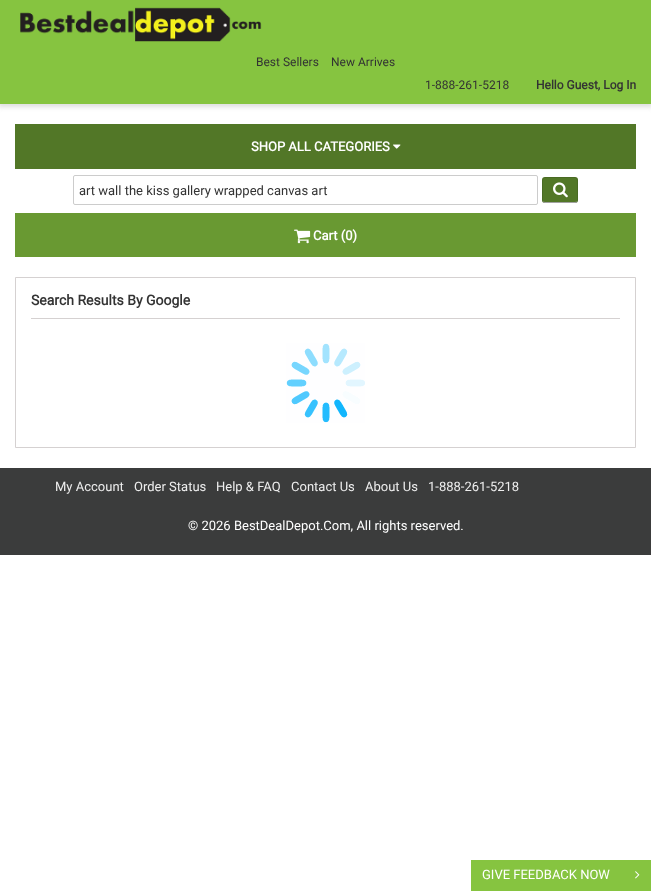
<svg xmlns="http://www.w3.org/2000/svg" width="651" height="891">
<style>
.a{font:12px Roboto;fill:#333}
.b{font:bold 12px Roboto;fill:#333}
.c{font:bold 13px Roboto;fill:#fff}
.d{font:13px Roboto;fill:#333}
.e{font:bold 14px Roboto;fill:#333}
.f{font:13px Roboto;fill:#eee}
.g{font:13px Roboto;fill:#fff}
</style>
<rect width="100%" height="100%" fill="#fff"/>
<path fill="#ddd" filter="blur(2.5px)" d="M-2 -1h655v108H-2z"/>
<path fill="#86c440" d="M0 0h651v104H0z"/>
<image href="1.png" x="20" y="7" width="242" height="35"/>
<path fill="#527727" d="M15 124h621v45H15z"/>
<image href="2.png" x="393" y="144" width="8" height="5"/>
<rect fill="none" stroke="#ccc" x="73.5" y="175.5" width="464" height="29" rx="1.5"/>
<rect fill="#527727" x="542" y="177" width="36" height="26" rx="3"/>
<path fill="none" stroke="#a2a2a2" d="M577 202c-.5 0-1.5 .5-2 .5h-30c-.5 0-1.5-.5-2-.5"/>
<path fill="none" stroke="#0000001a" d="M543 202c-1-1.5-.5-4-.5-5.5v-13c0-7 .5-6 7.5-6h20c7 0 7.5-1 7.5 6v13c0 1.5 .5 4-.5 5.5"/>
<image href="3.png" x="553" y="182" width="15" height="16"/>
<path fill="#699932" d="M15 213h621v44H15z"/>
<image href="4.png" x="294" y="229" width="17" height="15"/>
<path fill="none" stroke="#d5d1d1" d="M15.5 277.5h620v170H15.5z"/>
<path fill="#d5d1d1" d="M31 318h589v1H31z"/>
<image href="5.png" x="286" y="343" width="79" height="80"/>
<path fill="#3b3c3c" d="M0 468h651v87H0z"/>
<path fill="#86c440" d="M471 860h180v31H471z"/>
<image href="6.png" x="635" y="871" width="5" height="8"/>
<text class="a" x="256" y="66">Best Sellers</text>
<text class="a" x="331" y="66">New Arrives</text>
<text class="a" x="425" y="89">1-888-261-5218</text>
<text class="b" x="536" y="89">Hello Guest, Log In</text>
<text class="c" x="251" y="151">SHOP ALL CATEGORIES</text>
<text class="d" x="79" y="195">art wall the kiss gallery wrapped canvas art</text>
<text class="c" x="313" y="240">Cart (0)</text>
<text class="e" x="31" y="305">Search Results By Google</text>
<text class="f" x="55" y="491">My Account</text>
<text class="f" x="134" y="491">Order Status</text>
<text class="f" x="216" y="491">Help &amp; FAQ</text>
<text class="f" x="291" y="491">Contact Us</text>
<text class="f" x="365" y="491">About Us</text>
<text class="f" x="428" y="491">1-888-261-5218</text>
<text class="g" x="188" y="530">© 2026 BestDealDepot.Com, All rights reserved.</text>
<text class="g" x="482" y="879">GIVE FEEDBACK NOW</text>
</svg>
